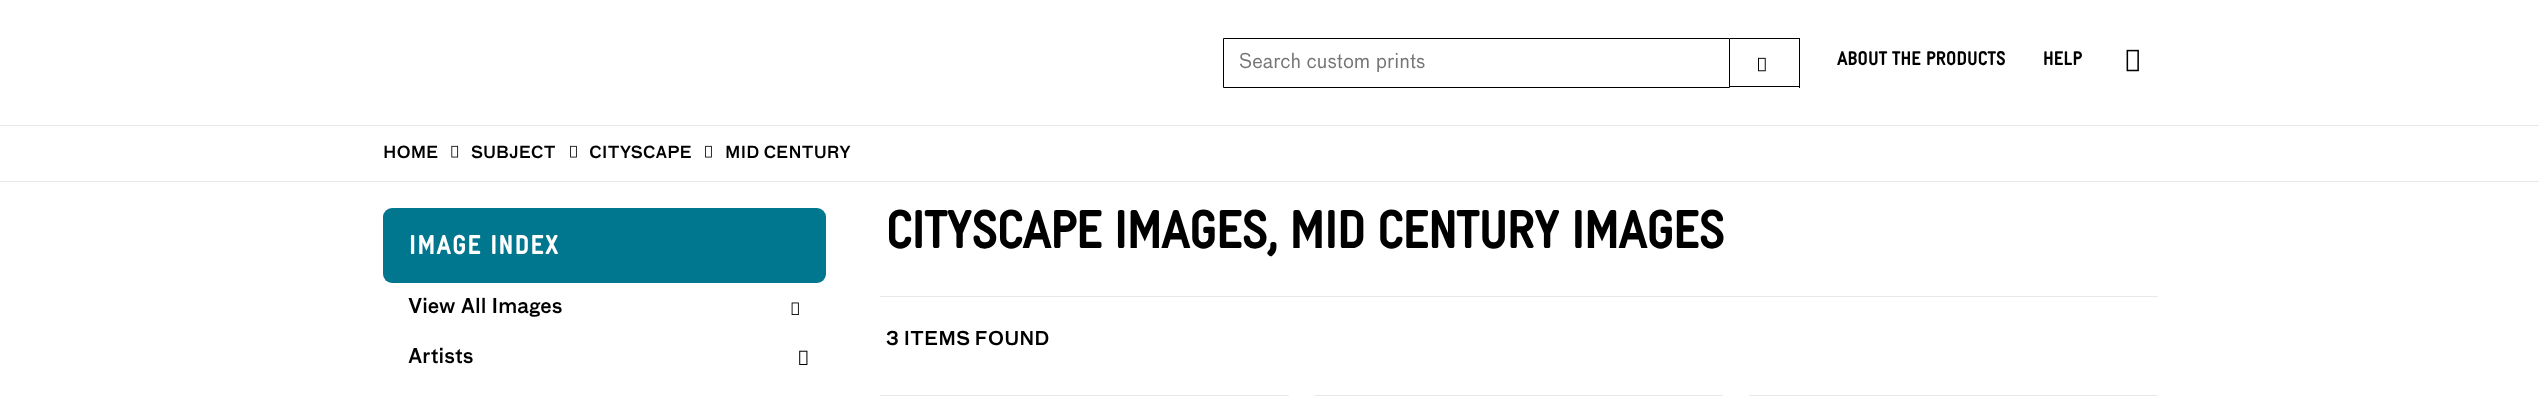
<svg xmlns="http://www.w3.org/2000/svg" width="2539" height="396">
<style>
.a{font:20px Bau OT;fill:#757575}
.b{font:bold 20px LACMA;fill:#000}
.c{font:500 16.25px Bau OT;fill:#000}
.d{font:bold 27.5px LACMA;letter-spacing:1.25px;fill:#fff}
.e{font:500 20px Bau OT;fill:#000}
.f{font:bold 55px LACMA;letter-spacing:-1.25px;fill:#000}
.g{font:500 18.75px Bau OT;fill:#000}
</style>
<rect width="100%" height="100%" fill="#fff"/>
<path fill="none" stroke="#000" d="M1223.5 38.5h506v49H1223.5z"/>
<path fill="#000" d="M1730 38h70v1H1730z"/>
<path fill="#000" d="M1799 38h1v50H1799z"/>
<path fill="#000" d="M1730 86h70v1H1730z"/>
<image href="1.png" x="1758" y="57" width="8" height="15"/>
<image href="2.png" x="2126" y="49" width="13" height="23"/>
<path fill="#e8e8e8" d="M0 125h2539v1H0z"/>
<path fill="#e8e8e8" d="M0 181h2539v1H0z"/>
<image href="3.png" x="451" y="145" width="8" height="13"/>
<image href="4.png" x="570" y="145" width="7" height="13"/>
<image href="4.png" x="705" y="145" width="7" height="13"/>
<rect fill="#00778e" x="383" y="208" width="443" height="75" rx="9"/>
<image href="5.png" x="791" y="302" width="8" height="13"/>
<image href="6.png" x="799" y="350" width="9" height="15"/>
<path fill="#e8e8e8" d="M880 296h1278v1H880z"/>
<path fill="none" stroke="#e8e8e8" d="M880.5 395.5h408v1H880.5z"/>
<path fill="none" stroke="#e8e8e8" d="M1314.5 395.5h408v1H1314.5z"/>
<path fill="none" stroke="#e8e8e8" d="M1749.5 395.5h408v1H1749.5z"/>
<text class="a" x="1239" y="68">Search custom prints</text>
<text class="b" x="1837" y="65">About the Products</text>
<text class="b" x="2043" y="65">Help</text>
<text class="c" x="383" y="158">HOME</text>
<text class="c" x="471" y="158">SUBJECT</text>
<text class="c" x="589" y="158">CITYSCAPE</text>
<text class="c" x="725" y="158">MID CENTURY</text>
<text class="d" x="409" y="254">Image Index</text>
<text class="e" x="408" y="313">View All Images</text>
<text class="e" x="408" y="363">Artists</text>
<text class="f" x="886" y="248">Cityscape Images, Mid Century Images</text>
<text class="g" x="886" y="345">3 ITEMS FOUND</text>
</svg>
